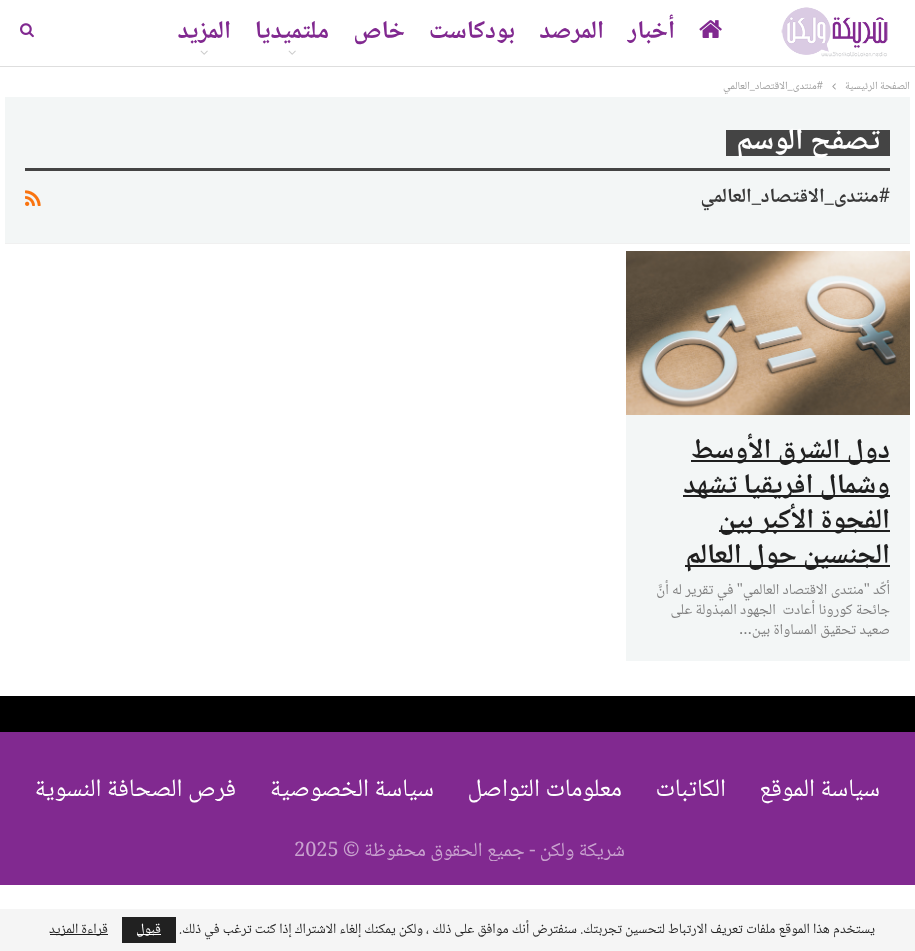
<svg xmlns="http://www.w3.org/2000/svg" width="915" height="951">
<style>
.a{font:bold 25px Noto Naskh Arabic;direction:rtl;fill:#812990}
.b{font:11px Noto Naskh Arabic;direction:rtl;fill:#9e9e9e}
.c{font:bold 30px Noto Naskh Arabic;direction:rtl;fill:#fff}
.d{font:bold 20px Noto Naskh Arabic;direction:rtl;fill:#383838}
.e{font:bold 28px Noto Naskh Arabic;direction:rtl;fill:#1f1f1f}
.f{font:15px Noto Naskh Arabic;direction:rtl;fill:#7f7f7f}
.g{font:25px Noto Naskh Arabic;direction:rtl;fill:#fff}
.h{font:20px Noto Naskh Arabic;direction:rtl;fill:#c9a3cf}
.i{font:20px Noto Naskh Arabic;fill:#c9a3cf}
.j{font:14px Noto Naskh Arabic;direction:rtl;fill:#1f1f1f}
.k{font:14px Noto Naskh Arabic;direction:rtl;fill:#fff}
</style>
<defs>
<clipPath id="clip1"><path d="M0 754h915v107H0z"/></clipPath>
</defs>
<rect width="100%" height="100%" fill="#fff"/>
<path fill="#dedede" d="M0 66h915v1H0z"/>
<image href="1.png" x="781" y="7" width="107" height="50"/>
<image href="2.png" x="699" y="20" width="23" height="18"/>
<image href="3.png" x="288" y="50" width="8" height="5"/>
<image href="3.png" x="200" y="50" width="8" height="5"/>
<image href="4.png" x="20" y="23" width="14" height="15"/>
<image href="5.png" x="832" y="83" width="4" height="7"/>
<path fill="#f3f6f6" d="M5 97h905v146H5z"/>
<path fill="#f0f0f0" d="M5 243h905v1H5z"/>
<path fill="#444" d="M726 130h164v26H726z"/>
<path fill="#444" d="M25 168h865v3H25z"/>
<image href="6.png" x="25" y="190" width="16" height="16"/>
<path fill="#f3f6f6" d="M626 415h284v246H626z"/>
<image href="7.png" x="626" y="251" width="284" height="164"/>
<path fill="#1f1f1f" d="M691 460h199v2H691z"/>
<path fill="#1f1f1f" d="M683 495h207v2H683z"/>
<path fill="#1f1f1f" d="M719 530h171v2H719z"/>
<path fill="#1f1f1f" d="M685 565h205v2H685z"/>
<path fill="#812990" d="M0 732h915v153H0z"/>
<path fill="#000" d="M0 696h915v36H0z"/>
<path fill="#f5f5f5" d="M0 909h915v42H0z"/>
<path fill="#212121" d="M122 917h54v26H122z"/>
<path fill="#fff" d="M137 934h24v1H137z"/>
<path fill="#212121" d="M50 934h58v1H50z"/>
<text class="a" x="675" y="38">أخبار</text>
<text class="a" x="604" y="38">المرصد</text>
<text class="a" x="515" y="38">بودكاست</text>
<text class="a" x="405" y="38">خاص</text>
<text class="a" x="329" y="38">ملتميديا</text>
<text class="a" x="231" y="38">المزيد</text>
<text class="b" x="910" y="89">الصفحة الرئيسية</text>
<text class="b" x="823" y="89">#منتدى_الاقتصاد_العالمي</text>
<text class="c" x="880" y="149">تصفح الوسم</text>
<text class="d" x="890" y="202">#منتدى_الاقتصاد_العالمي</text>
<text class="e" x="890" y="458">دول الشرق الأوسط</text>
<text class="e" x="890" y="493">وشمال افريقيا تشهد</text>
<text class="e" x="890" y="528">الفجوة الأكبر بين</text>
<text class="e" x="890" y="563">الجنسين حول العالم</text>
<text class="f" x="890" y="594">أكّد "منتدى الاقتصاد العالمي" في تقرير له أنَّ</text>
<text class="f" xml:space="preserve" x="890" y="614">جائحة كورونا أعادت  الجهود المبذولة على</text>
<text class="f" x="890" y="634">صعيد تحقيق المساواة بين…</text>
<text class="g" x="880" y="796">سياسة الموقع</text>
<text class="g" x="726" y="796">الكاتبات</text>
<text class="g" x="622" y="796">معلومات التواصل</text>
<text class="g" x="434" y="796">سياسة الخصوصية</text>
<text class="g" x="236" y="796">فرص الصحافة النسوية</text>
<g clip-path="url(#clip1)">
<text class="h" x="625" y="856">شريكة ولكن - جميع الحقوق محفوظة ©</text>
</g>
<text class="i" x="294" y="856">2025</text>
<text class="j" x="875" y="933">يستخدم هذا الموقع ملفات تعريف الارتباط لتحسين تجربتك. سنفترض أنك موافق على ذلك ، ولكن يمكنك إلغاء الاشتراك إذا كنت ترغب في ذلك.</text>
<text class="k" x="161" y="933">قبول</text>
<text class="j" x="108" y="933">قراءة المزيد</text>
</svg>
